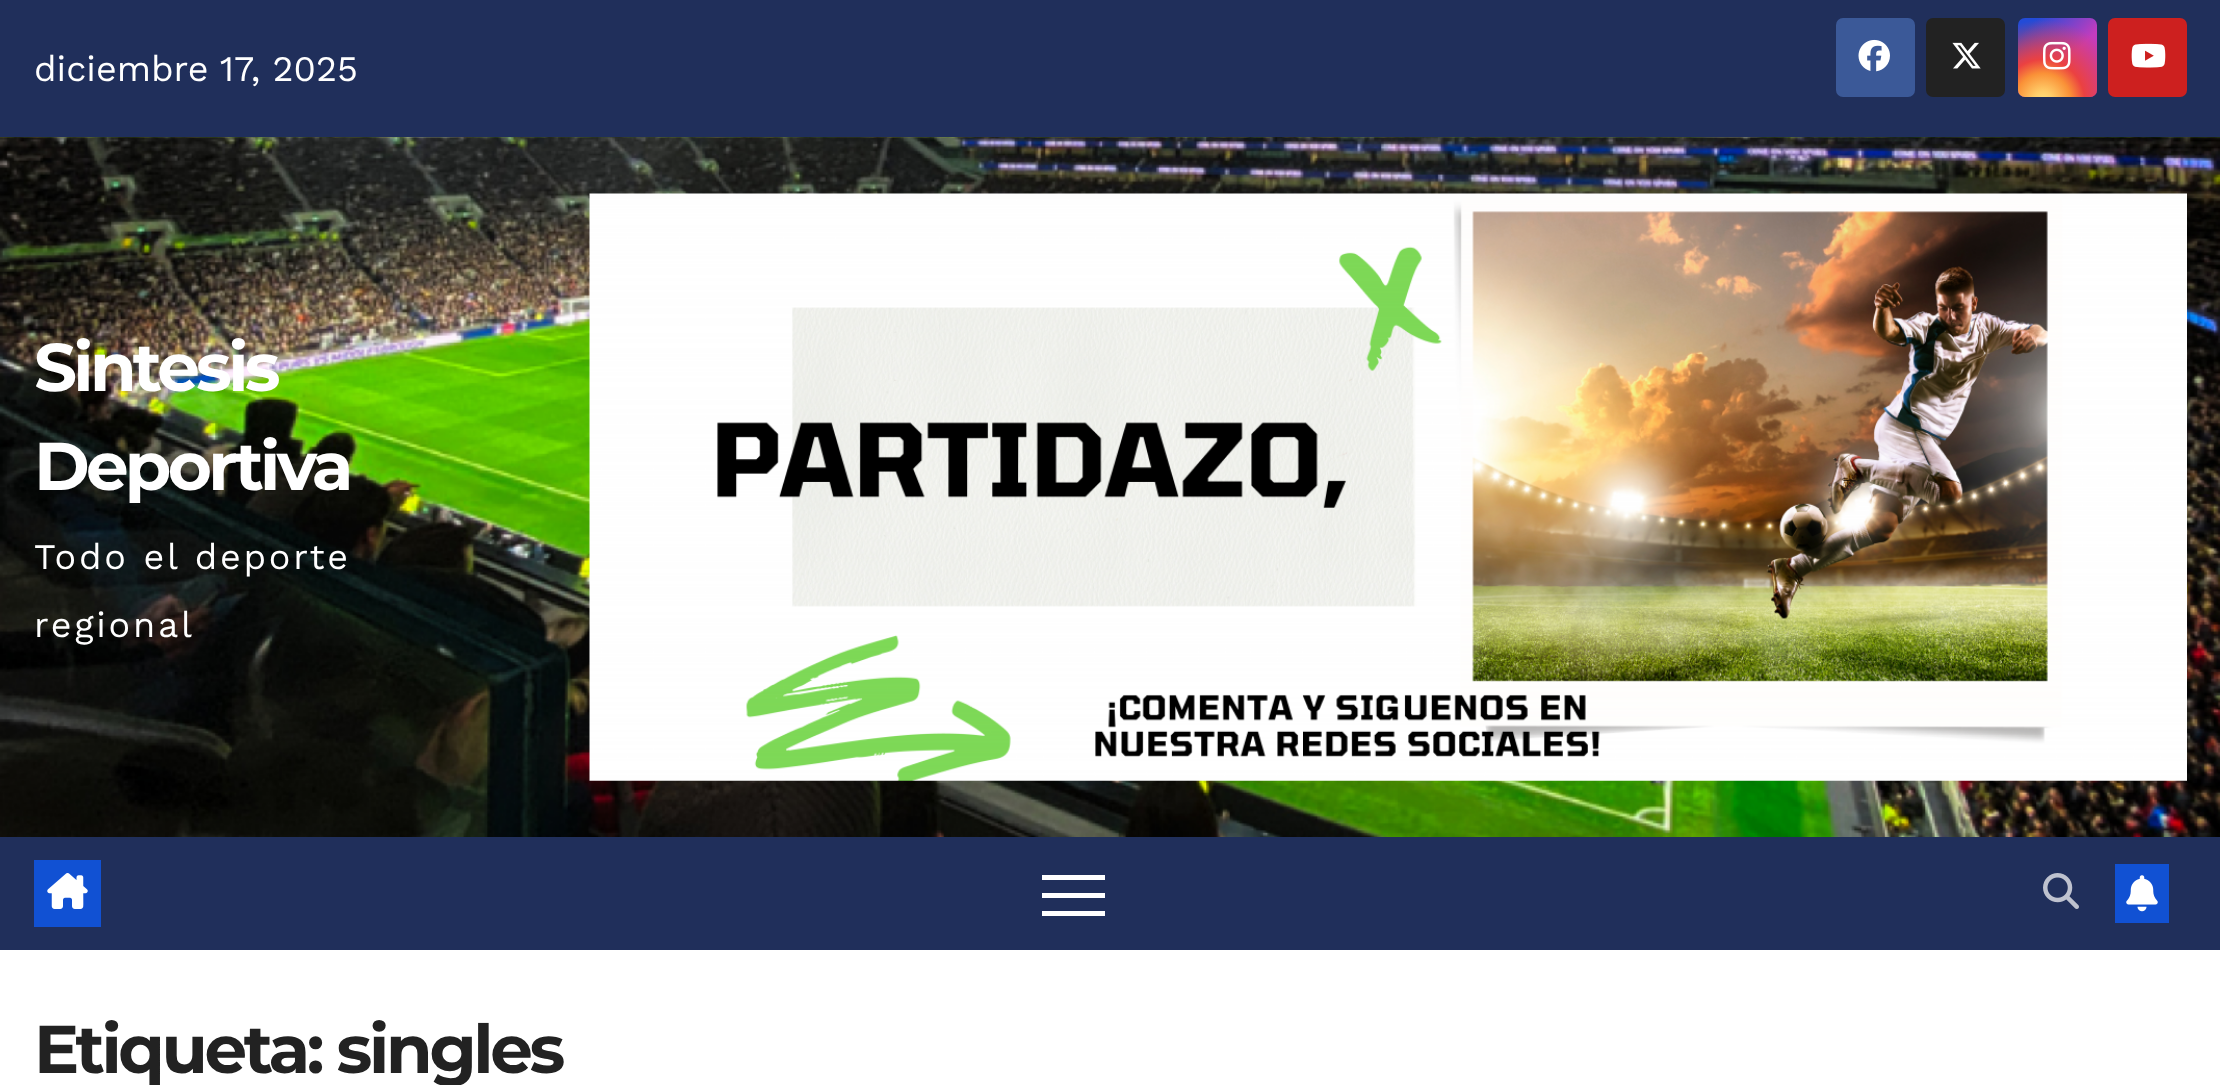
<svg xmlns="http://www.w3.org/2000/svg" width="2220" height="1085">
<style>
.a{font:36px Work Sans;fill:#fff}
.b{font:bold 67.5px Montserrat;letter-spacing:-3.75px;fill:#fff}
.c{font:36px Work Sans;letter-spacing:2.75px;fill:#fff}
.d{font:bold 67.5px Montserrat;letter-spacing:-3.4px;fill:#222}
</style>
<defs>
<linearGradient id="g1" gradientUnits="userSpaceOnUse" x1="2018" y1="18" x2="2097" y2="97"><stop offset="0.12" stop-color="#234bd7"/><stop offset="0.58" stop-color="#c33cbe"/></linearGradient>
<radialGradient id="g2" gradientUnits="userSpaceOnUse" cx="2043" cy="101" r="99"><stop offset="0" stop-color="#ffe17d"/><stop offset="0.1" stop-color="#ffcd69"/><stop offset="0.28" stop-color="#fa9137"/><stop offset="0.42" stop-color="#eb4141"/><stop offset="0.82" stop-color="#eb4141" stop-opacity="0"/></radialGradient>
</defs>
<rect width="100%" height="100%" fill="#fff"/>
<image href="1.png" x="0" y="137" width="2220" height="1"/>
<path fill="#202f5b" d="M0 0h2220v137H0z"/>
<rect fill="#3b5998" x="1836" y="18" width="79" height="79" rx="7"/>
<image href="2.png" x="1858" y="39" width="32" height="33"/>
<rect fill="#222" x="1926" y="18" width="79" height="79" rx="7"/>
<image href="3.png" x="1952" y="42" width="29" height="27"/>
<rect fill="url(#g1)" x="2018" y="18" width="79" height="79" rx="7"/>
<rect fill="url(#g2)" x="2018" y="18" width="79" height="79" rx="7"/>
<image href="4.png" x="2043" y="41" width="28" height="29"/>
<rect fill="#cd201f" x="2108" y="18" width="79" height="79" rx="7"/>
<image href="5.png" x="2131" y="43" width="35" height="25"/>
<image href="6.png" x="0" y="137" width="2220" height="700"/>
<image href="7.png" x="589" y="193" width="1598" height="588"/>
<path fill="#202f5b" d="M0 837h2220v113H0z"/>
<path fill="#1151d3" d="M34 860h67v67H34z"/>
<image href="8.png" x="47" y="873" width="41" height="36"/>
<path fill="#fff" d="M1042 875h63v5H1042z"/>
<path fill="#fff" d="M1042 893h63v5H1042z"/>
<path fill="#fff" d="M1042 911h63v5H1042z"/>
<image href="9.png" x="2043" y="873" width="36" height="36"/>
<path fill="#1151d3" d="M2115 864h54v59H2115z"/>
<image href="10.png" x="2126" y="875" width="32" height="37"/>
<text class="a" x="34" y="81">diciembre 17, 2025</text>
<text class="b" x="34" y="391">Sintesis</text>
<text class="b" x="34" y="490">Deportiva</text>
<text class="c" x="34" y="569">Todo el deporte</text>
<text class="c" x="34" y="637">regional</text>
<text class="d" x="34" y="1073">Etiqueta: singles</text>
</svg>
